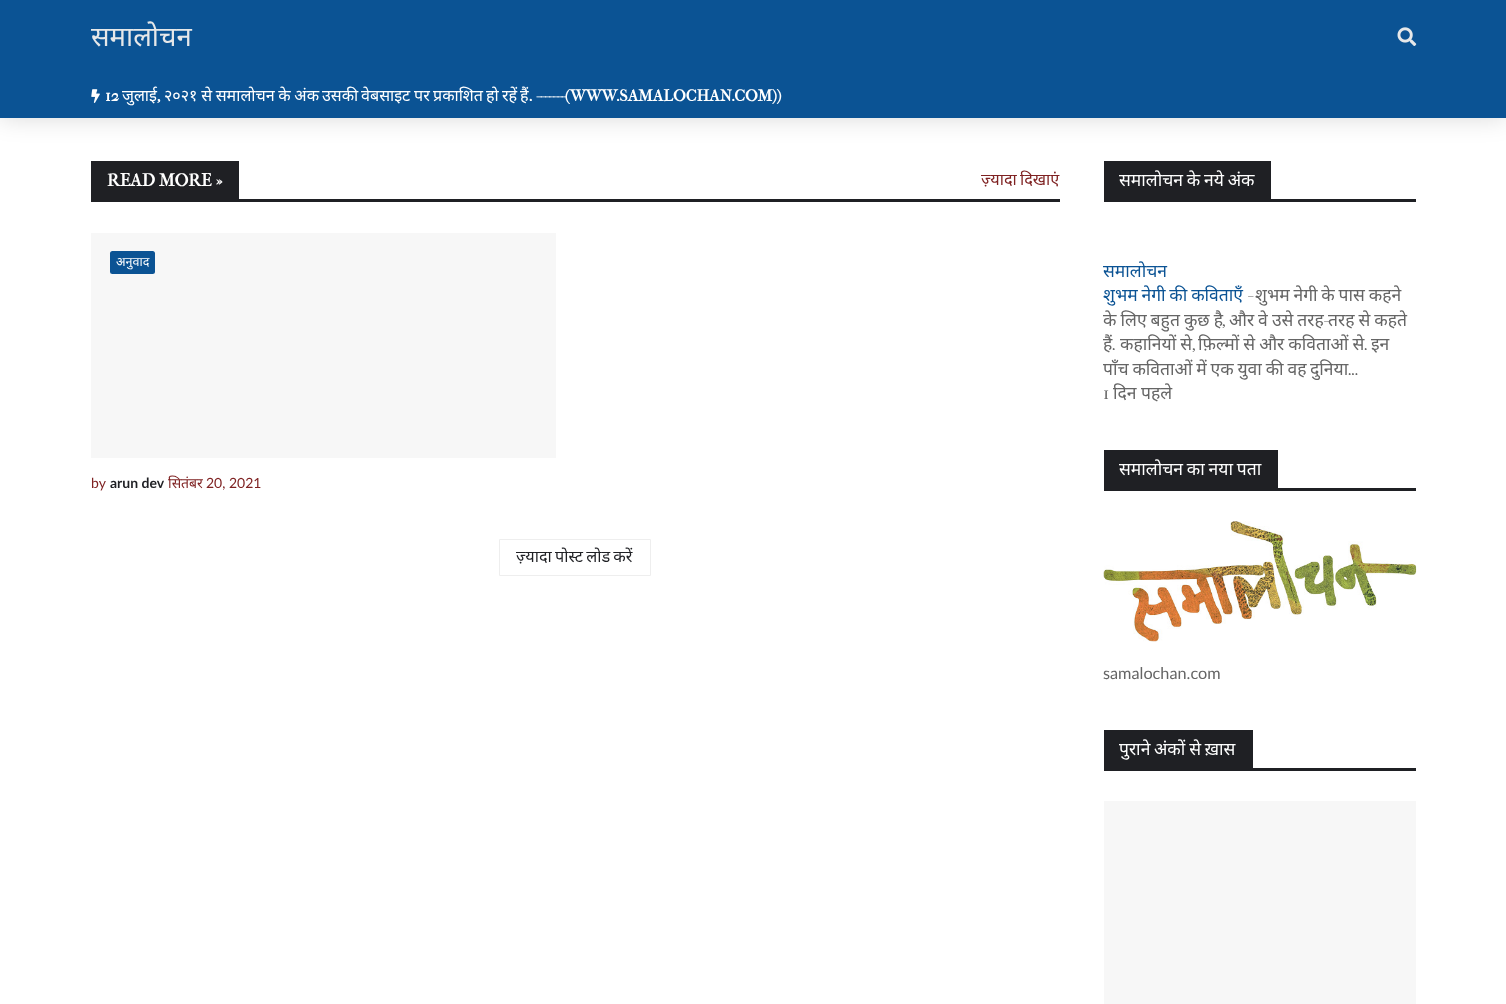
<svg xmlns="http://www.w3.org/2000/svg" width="1506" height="1004">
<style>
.a{font:27.5px Noto Sans;fill:#e7e8e9}
.b{font:bold 16.1px IM FELL French Canon SC;fill:#fff}
.c{font:16.1px Noto Sans;fill:#fff}
.d{font:bold 17.5px IM FELL French Canon SC;fill:#fff}
.e{font:16.25px Noto Sans;fill:#7f2222}
.f{font:12.5px Noto Sans;fill:#fff}
.g{font:14px Lato;fill:#7f2222}
.h{font:bold 14px Lato;fill:#1f2024}
.i{font:14px Noto Sans;fill:#7f2222}
.j{font:16.25px Noto Sans;fill:#1f2024}
.k{font:17.5px Noto Sans;fill:#fff}
.l{font:17.5px Noto Sans;fill:#0b5394}
.m{font:17.5px IM FELL French Canon SC;fill:#656565}
.n{font:17.5px Noto Sans;fill:#656565}
.o{font:16.25px Lato;fill:#656565}
</style>
<rect width="100%" height="100%" fill="#fff"/>
<path fill="#00000026" filter="blur(12.5px)" d="M0 0h1506v118H0z"/>
<path fill="#0b5394" d="M0 0h1506v118H0z"/>
<image href="1.png" x="1397" y="27" width="20" height="19"/>
<image href="2.png" x="91" y="89" width="9" height="14"/>
<path fill="#1f2024" d="M91 199h969v3H91z"/>
<path fill="#1f2024" d="M91 161h148v38H91z"/>
<path fill="#f7f7f7" d="M91 233h465v225H91z"/>
<rect fill="#0b5394" x="110" y="251" width="45" height="23" rx="2.5"/>
<path fill="none" stroke="#eee" d="M499.5 539.5h151v36H499.5z"/>
<path fill="#1f2024" d="M1104 199h312v3H1104z"/>
<path fill="#1f2024" d="M1104 161h167v38H1104z"/>
<path fill="#1f2024" d="M1104 488h312v3H1104z"/>
<path fill="#1f2024" d="M1104 450h174v38H1104z"/>
<image href="3.png" x="1103" y="521" width="314" height="121"/>
<path fill="#1f2024" d="M1104 768h312v3H1104z"/>
<path fill="#1f2024" d="M1104 730h149v38H1104z"/>
<path fill="#f7f7f7" d="M1104 801h312v203H1104z"/>
<text class="a" x="91" y="46">समालोचन</text>
<text class="b" x="105" y="101">12</text>
<text class="c" x="122" y="101">जुलाई</text>
<text class="b" x="157" y="101">,</text>
<text class="c" x="164" y="101" word-spacing="-0.5">२०२१ से समालोचन के अंक</text>
<text class="c" x="322" y="101">उसकी</text>
<text class="c" x="361" y="101">वेबसाइट</text>
<text class="c" x="414" y="101">पर</text>
<text class="c" x="433" y="101">प्रकाशित</text>
<text class="c" x="486" y="101">हो</text>
<text class="c" x="502" y="101">रहें</text>
<text class="c" x="520" y="101">हैं</text>
<text class="b" x="529" y="101">. -------(WWW.SAMALOCHAN.COM))</text>
<text class="d" x="107" y="186">READ MORE »</text>
<text class="e" x="981" y="185" word-spacing="-1">ज़्यादा दिखाएं</text>
<text class="f" x="116" y="266">अनुवाद</text>
<text class="g" x="91" y="488">by</text>
<text class="h" x="110" y="488">arun dev</text>
<text class="i" x="168" y="488">सितंबर</text>
<text class="g" x="206" y="488">20, 2021</text>
<text class="j" x="516" y="562" word-spacing="-1">ज़्यादा पोस्ट लोड करें</text>
<text class="k" x="1119" y="186" word-spacing="-0.75">समालोचन के नये अंक</text>
<text class="l" x="1103" y="277">समालोचन</text>
<text class="l" x="1103" y="301" word-spacing="-0.75">शुभम नेगी की कविताएँ</text>
<text class="m" x="1247" y="301">-</text>
<text class="n" x="1255" y="301" word-spacing="-0.75">शुभम नेगी के पास कहने</text>
<text class="n" x="1103" y="326" word-spacing="-0.5">के लिए बहुत कुछ है</text>
<text class="n" x="1229" y="326" word-spacing="-0.5">और वे उसे तरह</text>
<text class="m" x="1323" y="326">-</text>
<text class="n" x="1328" y="326" word-spacing="-0.5">तरह से कहते</text>
<text class="m" x="1222" y="326">,</text>
<text class="n" x="1103" y="350">हैं</text>
<text class="m" x="1112" y="350">.</text>
<text class="n" x="1120" y="350" word-spacing="-0.5">कहानियों से</text>
<text class="m" x="1192" y="350">,</text>
<text class="n" x="1198" y="350" word-spacing="-0.5">फ़िल्मों से और कविताओं से</text>
<text class="m" x="1364" y="350">.</text>
<text class="n" x="1371" y="350">इन</text>
<text class="n" x="1103" y="375" word-spacing="-0.75">पाँच कविताओं में एक युवा की वह</text>
<text class="n" x="1310" y="375">दुनिया</text>
<text class="m" x="1348" y="375">...</text>
<text class="m" x="1103" y="399">1</text>
<text class="n" x="1113" y="399">दिन पहले</text>
<text class="k" x="1119" y="475" word-spacing="-0.75">समालोचन का नया पता</text>
<text class="o" x="1103" y="679">samalochan.com</text>
<text class="k" x="1119" y="755">पुराने</text>
<text class="k" x="1154" y="755" word-spacing="-0.75">अंकों से ख़ास</text>
</svg>
